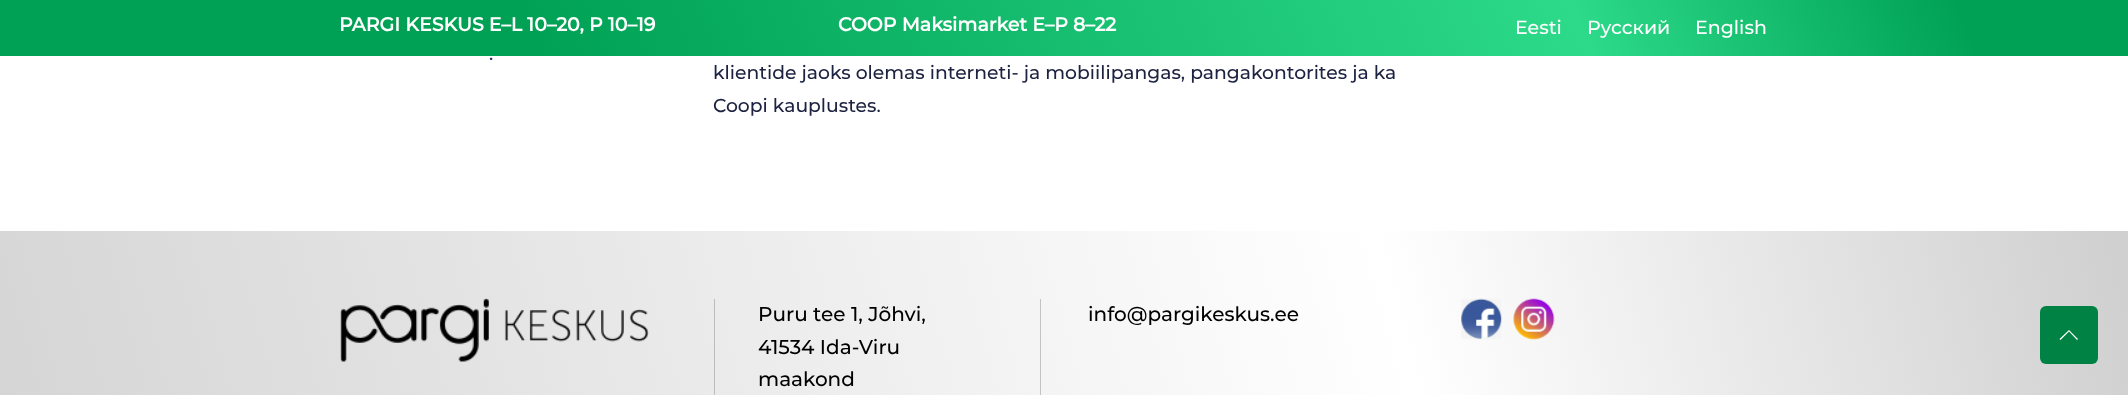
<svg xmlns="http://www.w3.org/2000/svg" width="2128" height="395">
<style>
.a{font:bold 19px Montserrat;fill:#fff}
.b{font:500 19px Montserrat;fill:#fff}
.c{font:500 18.75px Montserrat;fill:#242d63}
.d{font:500 18.75px Montserrat;fill:#1d2240}
.e{font:500 20px Montserrat;fill:#000}
</style>
<defs>
<linearGradient id="g1" gradientUnits="userSpaceOnUse" x1="140" y1="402" x2="1989" y2="-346"><stop offset="0.25" stop-color="#00a154"/><stop offset="0.74" stop-color="#2cda89"/><stop offset="0.92" stop-color="#00a154"/></linearGradient>
<linearGradient id="g2" gradientUnits="userSpaceOnUse" x1="29" y1="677" x2="2100" y2="123"><stop offset="0" stop-color="#d4d4d4"/><stop offset="0.66" stop-color="#fff"/><stop offset="0.99" stop-color="#d0d0d0"/></linearGradient>
</defs>
<rect width="100%" height="100%" fill="#fff"/>
<path fill="#fff" filter="blur(10px)" d="M10 13h2109v36H10z"/>
<path fill="url(#g1)" d="M0 0h2128v56H0z"/>
<path fill="url(#g2)" d="M0 231h2128v164H0z"/>
<image href="1.png" x="340" y="298" width="309" height="64"/>
<path fill="#c3c3c3" d="M1040 299h1v96H1040z"/>
<path fill="#bcbcbc" d="M714 299h1v96H714z"/>
<image href="2.png" x="1461" y="298" width="41" height="42"/>
<image href="3.png" x="1513" y="298" width="42" height="42"/>
<rect fill="#008244" x="2040" y="306" width="58" height="58" rx="6"/>
<path fill="#fff" d="M2078 339l-9-9l-9.5 9l1 1l8.5-8.5l8 8.5z"/>
<text class="a" x="339" y="31">PARGI KESKUS E–L 10–20, P 10–19</text>
<text class="a" x="838" y="31">COOP Maksimarket E–P 8–22</text>
<text class="b" x="1515" y="34">Eesti</text>
<text class="b" x="1587" y="34">Русский</text>
<text class="b" x="1695" y="34">English</text>
<text class="c" x="489" y="60">.</text>
<text class="d" x="713" y="79">klientide jaoks olemas interneti- ja mobiilipangas, pangakontorites ja ka</text>
<text class="d" x="713" y="112">Coopi kauplustes.</text>
<text class="e" x="758" y="321">Puru tee 1, Jõhvi,</text>
<text class="e" x="758" y="354">41534 Ida-Viru</text>
<text class="e" x="758" y="386">maakond</text>
<text class="e" x="1088" y="321">info@pargikeskus.ee</text>
</svg>
